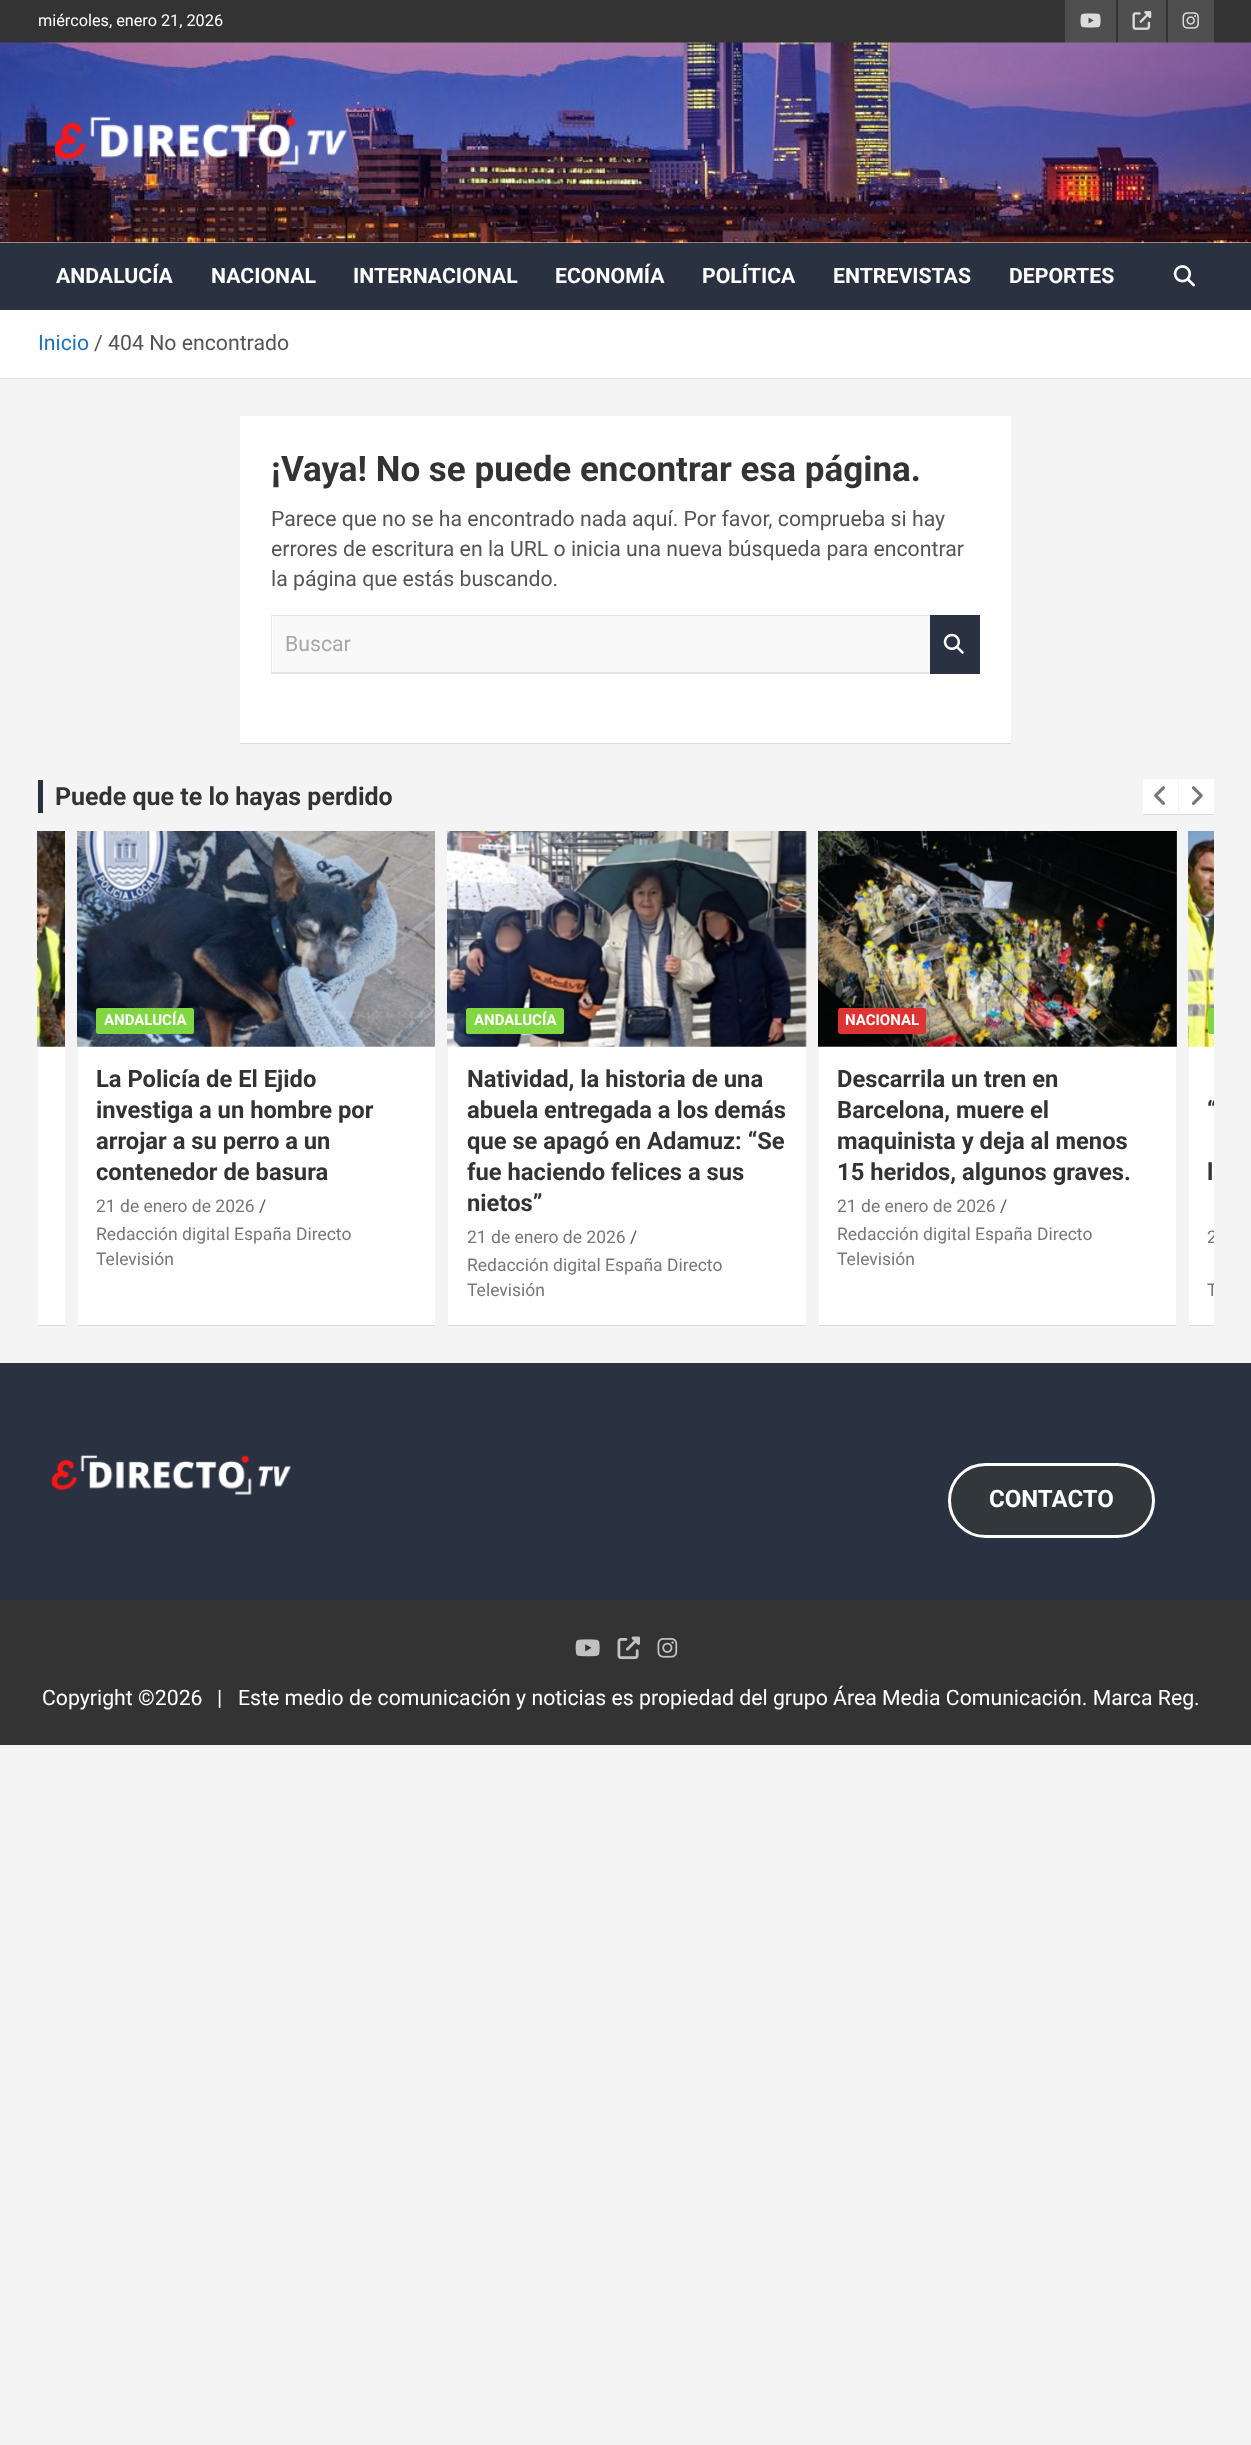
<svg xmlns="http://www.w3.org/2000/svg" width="1251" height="2445">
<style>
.a{font:16.25px Roboto;fill:#fff}
.b{font:bold 21.25px Roboto;fill:#fff}
.c{font:21.25px Roboto;fill:#1e73be}
.d{font:21.25px Roboto;fill:#555}
.e{font:bold 35px Roboto;fill:#333}
.f{font:21.25px Roboto;fill:#a7a7a7}
.g{font:bold 25px Roboto;fill:#333}
.h{font:bold 15px Roboto;fill:#fff}
.i{font:bold 23.75px Roboto;fill:#333}
.j{font:17.5px Roboto;fill:#777}
.k{font:17.5px Roboto;fill:#555}
.l{font:bold 24px Roboto;fill:#fff}
.m{font:21.25px Roboto;fill:#fff}
</style>
<defs>
<clipPath id="clip1"><path d="M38 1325h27v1H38z"/></clipPath>
<clipPath id="clip2"><path d="M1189 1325h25v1H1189z"/></clipPath>
<clipPath id="clip3"><path d="M38 831h1176v512H38z"/></clipPath>
</defs>
<rect width="100%" height="100%" fill="#f4f4f4"/>
<path fill="#333" d="M0 0h1251v43H0z"/>
<path fill="#4f4f4f" d="M1065 0h51v43H1065z"/>
<image href="1.png" x="1080" y="13" width="21" height="15"/>
<path fill="#4f4f4f" d="M1118 0h48v43H1118z"/>
<image href="2.png" x="1132" y="11" width="20" height="19"/>
<path fill="#4f4f4f" d="M1168 0h46v43H1168z"/>
<image href="3.png" x="1182" y="12" width="17" height="17"/>
<path fill="#fff" d="M0 242h1251v1H0z"/>
<image href="4.png" x="0" y="42" width="1251" height="201"/>
<image href="5.png" x="53" y="116" width="294" height="50"/>
<path fill="#2a3241" d="M0 243h1251v67H0z"/>
<image href="6.png" x="1173" y="265" width="22" height="22"/>
<path fill="#fff" d="M0 310h1251v68H0z"/>
<path fill="#e6e6e6" d="M0 378h1251v1H0z"/>
<path fill="#0000001a" filter="blur(0.5px)" d="M240 418h771v326H240z"/>
<path fill="#fff" d="M240 416h771v327H240z"/>
<path fill="#f9f9f9" d="M273 616h657v57H273z"/>
<path fill="#e8e8e8" d="M271 615h659v1h-658z"/>
<path fill="#00000017" d="M930 674h-659l1-2h658z"/>
<path fill="#00000017" d="M271 674v-59l1 1v56z"/>
<path fill="#2a3241" d="M930 615h50v59H930z"/>
<image href="7.png" x="943" y="633" width="21" height="21"/>
<path fill="#2a3241" d="M38 780h5v33H38z"/>
<path fill="#0000001a" filter="blur(0.5px)" d="M1143 780h35v35H1143z"/>
<path fill="#fff" d="M1143 779h35v35H1143z"/>
<image href="8.png" x="1154" y="786" width="11" height="19"/>
<path fill="#0000001a" filter="blur(0.5px)" d="M1179 780h35v35H1179z"/>
<path fill="#fff" d="M1179 779h35v35H1179z"/>
<image href="9.png" x="1191" y="786" width="12" height="19"/>
<g clip-path="url(#clip1)">
<path fill="#0000001a" filter="blur(0.5px)" d="M-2 833h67v493H-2z"/>
</g>
<path fill="#fff" d="M38 1046h27v279H38z"/>
<image href="10.png" x="37" y="831" width="28" height="216"/>
<path fill="#0000001a" filter="blur(0.5px)" d="M78 833h357v493H78z"/>
<path fill="#fff" d="M78 1046h357v279H78z"/>
<image href="11.png" x="77" y="831" width="358" height="216"/>
<rect fill="#81d742" x="96" y="1008" width="98" height="26" rx="2.5"/>
<path fill="#0000001a" filter="blur(0.5px)" d="M448 833h358v493H448z"/>
<path fill="#fff" d="M448 831h358v494H448z"/>
<image href="12.png" x="447" y="831" width="360" height="216"/>
<rect fill="#81d742" x="466" y="1008" width="98" height="26" rx="2.5"/>
<path fill="#0000001a" filter="blur(0.5px)" d="M819 833h357v493H819z"/>
<path fill="#fff" d="M819 1046h357v279H819z"/>
<image href="13.png" x="818" y="831" width="359" height="216"/>
<rect fill="#d33" x="838" y="1008" width="88" height="26" rx="2.5"/>
<g clip-path="url(#clip2)">
<path fill="#0000001a" filter="blur(0.5px)" d="M1189 833h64v493H1189z"/>
</g>
<path fill="#fff" d="M1189 1046h25v279H1189z"/>
<image href="14.png" x="1188" y="831" width="26" height="216"/>
<path fill="#81d742" d="M1210.5 1008h3.5v26h-3.5c-1.5 0-2.5-1-2.5-2.5v-21c0-1.5 1-2.5 2.5-2.5z"/>
<path fill="#2a3241" d="M0 1363h1251v237H0z"/>
<image href="15.png" x="50" y="1454" width="241" height="41"/>
<rect fill="#32373c" stroke="#fff" stroke-width="3" x="949.5" y="1464.5" width="204" height="72" rx="36"/>
<path fill="#333" d="M0 1600h1251v145H0z"/>
<image href="16.png" x="575" y="1639" width="25" height="18"/>
<image href="17.png" x="617" y="1636" width="23" height="24"/>
<image href="18.png" x="657" y="1638" width="21" height="20"/>
<text class="a" x="38" y="26">miércoles, enero 21, 2026</text>
<text class="b" x="56" y="283">ANDALUCÍA</text>
<text class="b" x="211" y="283">NACIONAL</text>
<text class="b" x="353" y="283">INTERNACIONAL</text>
<text class="b" x="555" y="283">ECONOMÍA</text>
<text class="b" x="702" y="283">POLÍTICA</text>
<text class="b" x="833" y="283">ENTREVISTAS</text>
<text class="b" x="1009" y="283">DEPORTES</text>
<text class="c" x="38" y="350">Inicio</text>
<text class="d" x="94" y="350">/ 404 No encontrado</text>
<text class="e" x="271" y="481">¡Vaya! No se puede encontrar esa página.</text>
<text class="d" x="271" y="526">Parece que no se ha encontrado nada aquí. Por favor, comprueba si hay</text>
<text class="d" x="271" y="556">errores de escritura en la URL o inicia una nueva búsqueda para encontrar</text>
<text class="d" x="271" y="586">la página que estás buscando.</text>
<text class="f" x="285" y="651">Buscar</text>
<text class="g" x="55" y="805">Puede que te lo hayas perdido</text>
<text class="h" x="104" y="1025">ANDALUCÍA</text>
<text class="i" x="96" y="1087">La Policía de El Ejido</text>
<text class="i" x="96" y="1118">investiga a un hombre por</text>
<text class="i" x="96" y="1149">arrojar a su perro a un</text>
<text class="i" x="96" y="1180">contenedor de basura</text>
<text class="j" x="96" y="1212">21 de enero de 2026</text>
<text class="k" x="259" y="1212">/</text>
<text class="j" x="96" y="1240">Redacción digital España Directo</text>
<text class="j" x="96" y="1265">Televisión</text>
<text class="h" x="474" y="1025">ANDALUCÍA</text>
<text class="i" x="467" y="1087">Natividad, la historia de una</text>
<text class="i" x="467" y="1118">abuela entregada a los demás</text>
<text class="i" x="467" y="1149">que se apagó en Adamuz: “Se</text>
<text class="i" x="467" y="1180">fue haciendo felices a sus</text>
<text class="i" x="467" y="1211">nietos”</text>
<text class="j" x="467" y="1243">21 de enero de 2026</text>
<text class="k" x="630" y="1243">/</text>
<text class="j" x="467" y="1271">Redacción digital España Directo</text>
<text class="j" x="467" y="1296">Televisión</text>
<text class="h" x="845" y="1025">NACIONAL</text>
<text class="i" x="837" y="1087">Descarrila un tren en</text>
<text class="i" x="837" y="1118">Barcelona, muere el</text>
<text class="i" x="837" y="1149">maquinista y deja al menos</text>
<text class="i" x="837" y="1180">15 heridos, algunos graves.</text>
<text class="j" x="837" y="1212">21 de enero de 2026</text>
<text class="k" x="1000" y="1212">/</text>
<text class="j" x="837" y="1240">Redacción digital España Directo</text>
<text class="j" x="837" y="1265">Televisión</text>
<g clip-path="url(#clip3)">
<text class="i" x="1207" y="1118">“</text>
</g>
<text class="i" x="1207" y="1180">l</text>
<g clip-path="url(#clip3)">
<text class="j" x="1207" y="1243">2</text>
<text class="j" x="1207" y="1296">T</text>
</g>
<text class="l" x="989" y="1507">CONTACTO</text>
<text class="m" x="42" y="1705">Copyright ©2026</text>
<text class="m" x="217" y="1705">|</text>
<text class="m" x="238" y="1705">Este medio de comunicación y noticias es propiedad del grupo Área Media Comunicación. Marca Reg.</text>
</svg>
